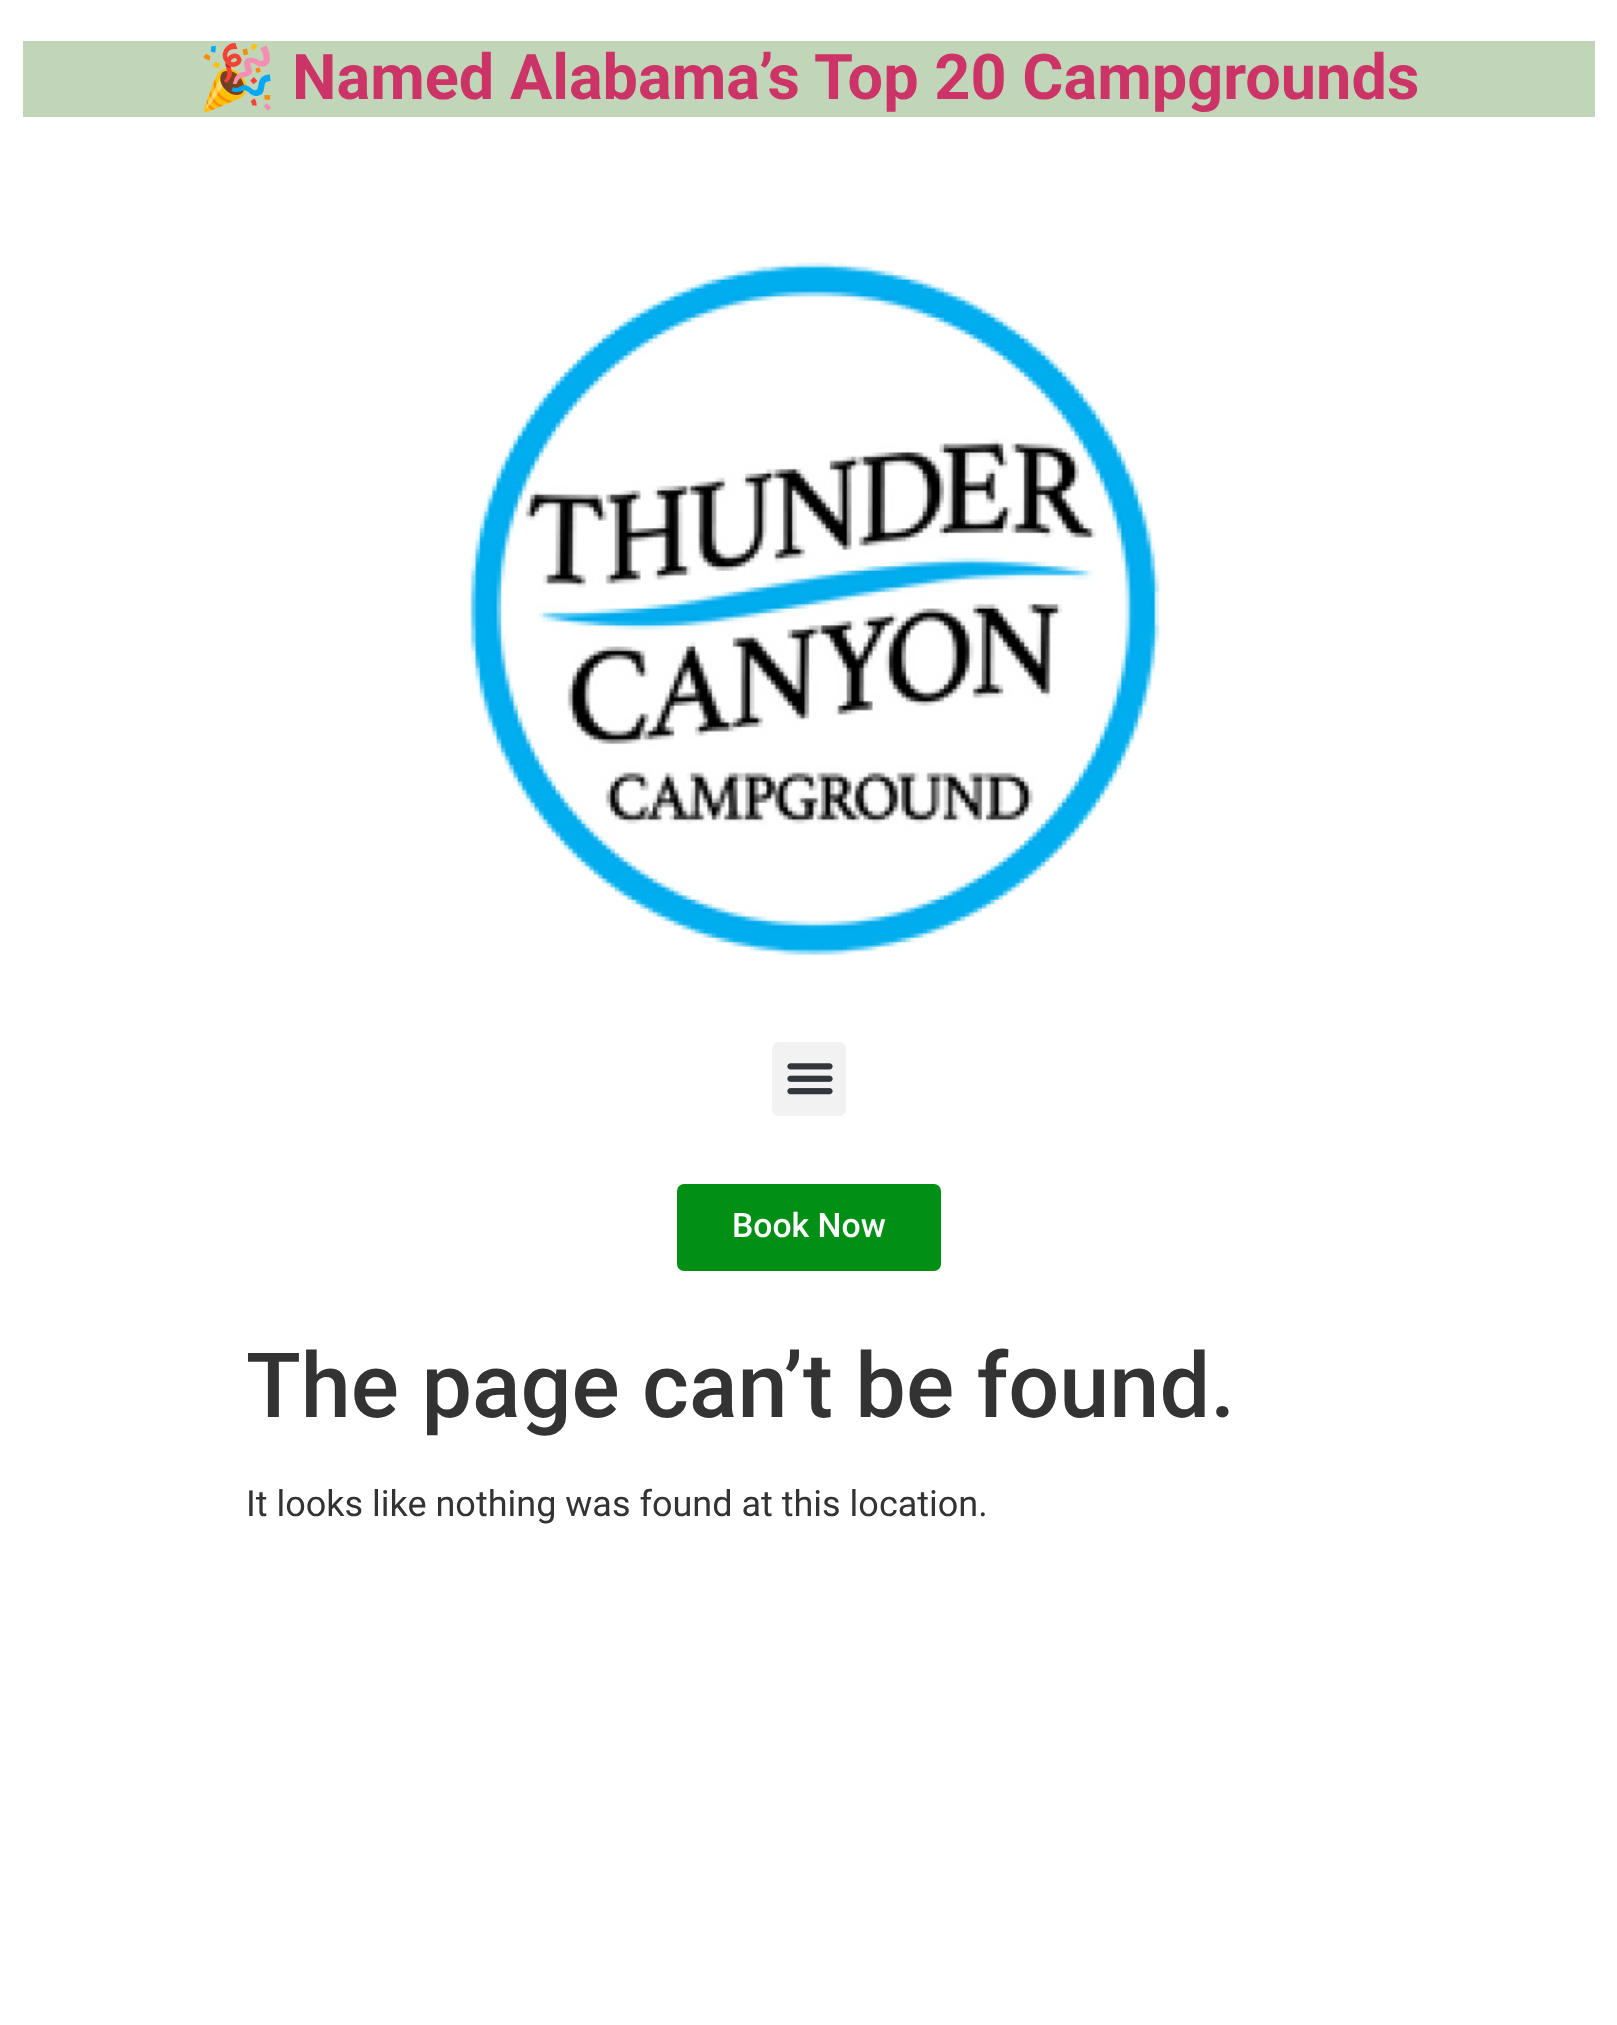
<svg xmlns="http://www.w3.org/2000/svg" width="1617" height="2025">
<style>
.a{font:bold 63px Noto Color Emoji;fill:#c36}
.b{font:bold 63px Roboto;fill:#c36}
.c{font:500 33.75px Roboto;fill:#fff}
.d{font:500 90px Roboto;fill:#333}
.e{font:36px Roboto;fill:#333}
</style>
<rect width="100%" height="100%" fill="#fff"/>
<path fill="#c1d6b8" d="M23 41h1572v76H23z"/>
<image href="1.png" x="470" y="262" width="690" height="694"/>
<rect fill="#f2f2f2" x="772" y="1042" width="74" height="74" rx="7"/>
<image href="2.png" x="787" y="1063" width="46" height="32"/>
<rect fill="#028f15" x="677" y="1184" width="264" height="87" rx="7"/>
<text class="a" x="198" y="99">🎉</text>
<text class="b" x="292" y="99">Named Alabama’s Top 20 Campgrounds</text>
<text class="c" x="732" y="1237">Book Now</text>
<text class="d" x="246" y="1417">The page can’t be found.</text>
<text class="e" x="246" y="1516">It looks like nothing was found at this location.</text>
</svg>
